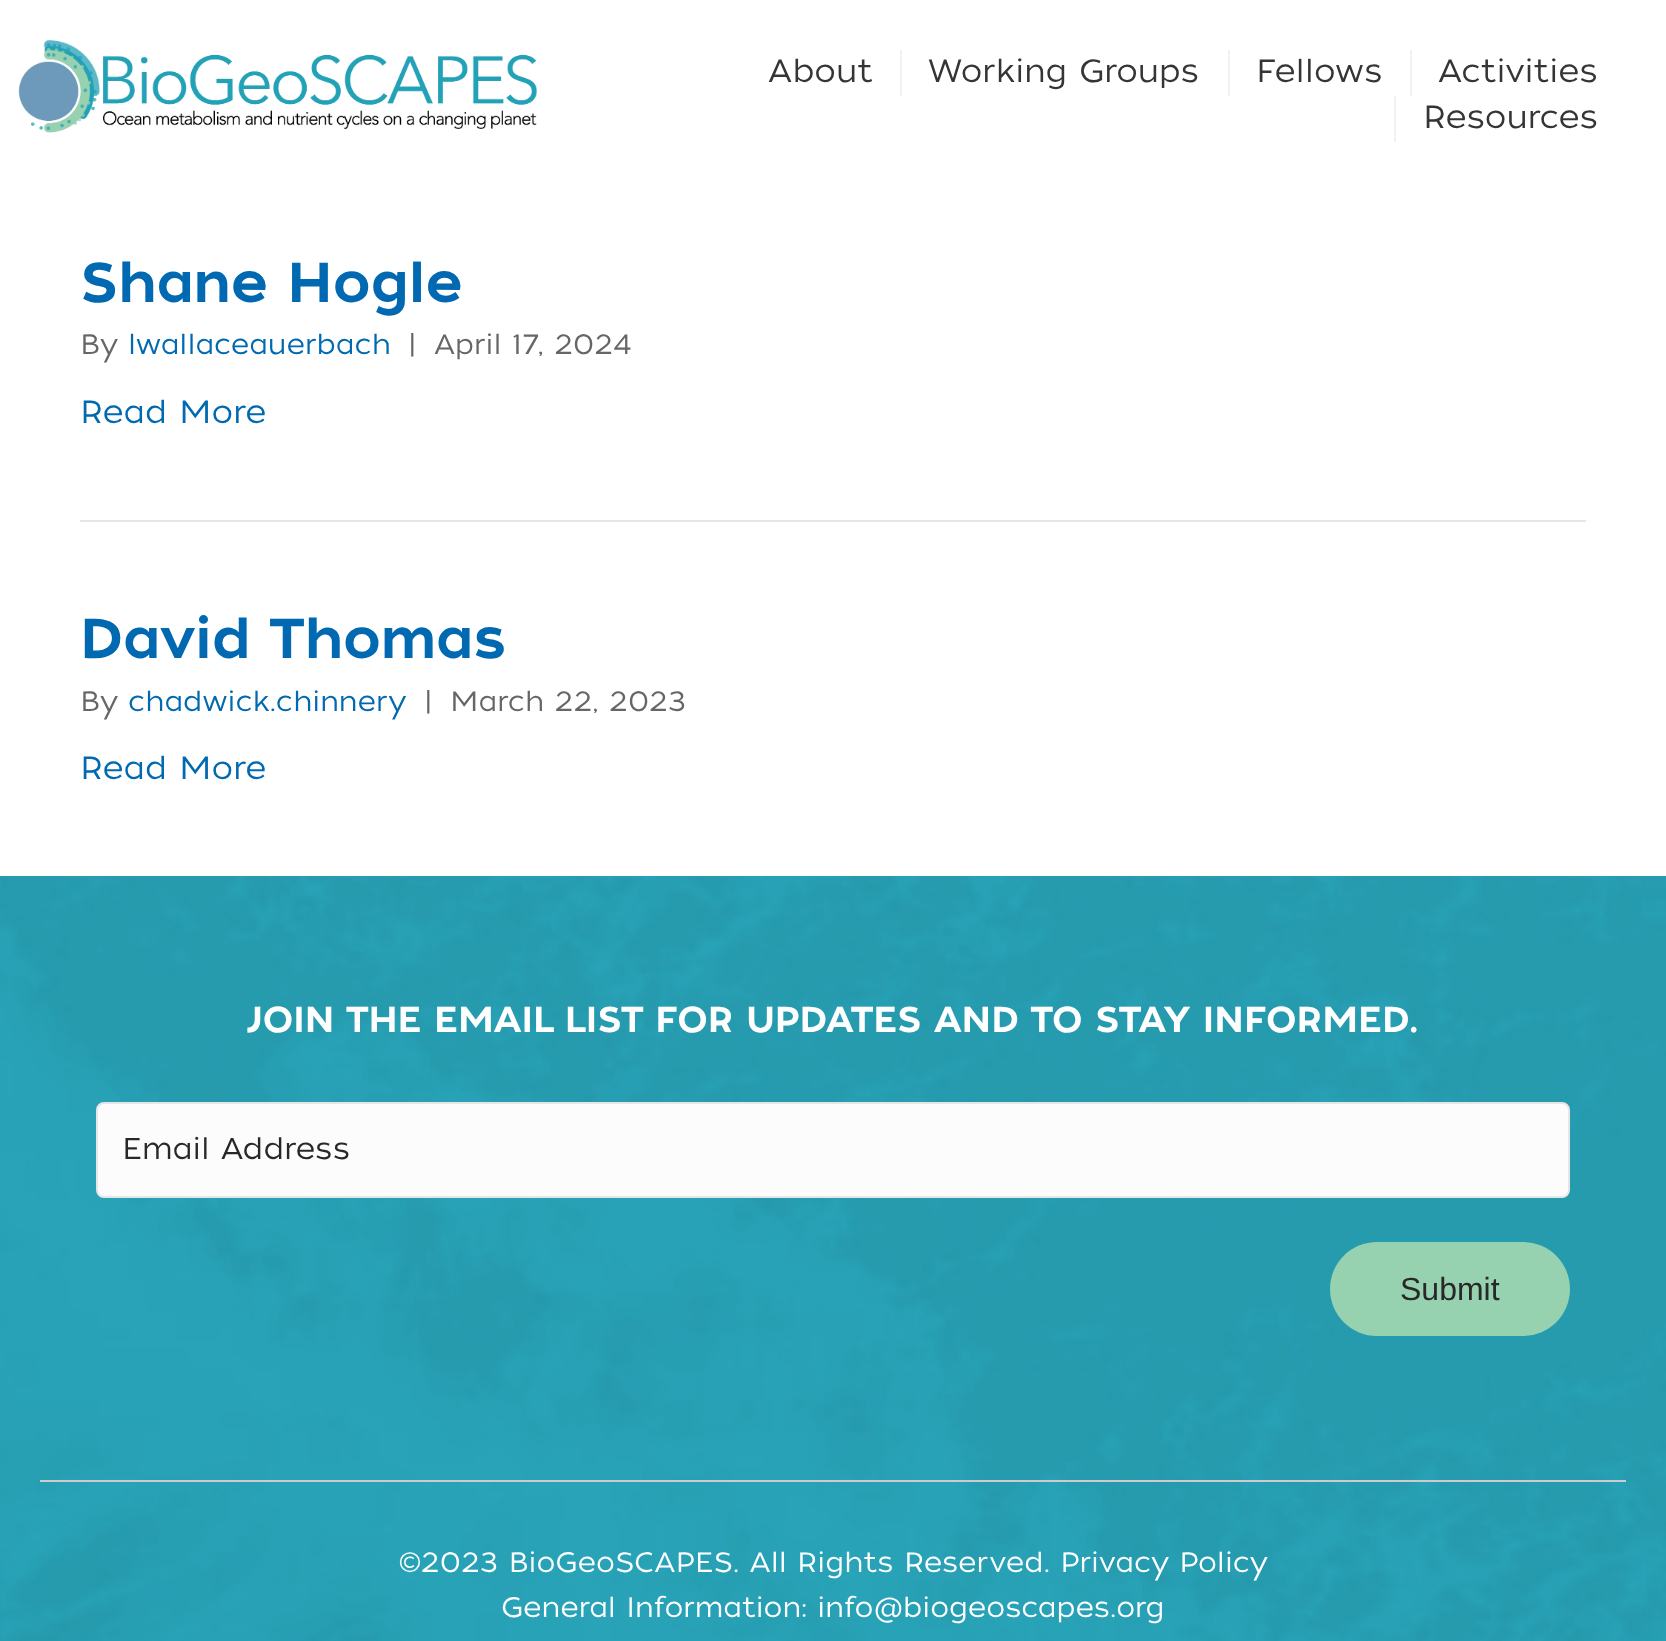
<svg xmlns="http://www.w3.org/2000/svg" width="1666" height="1641">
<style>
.a{font:300 32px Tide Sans;fill:#353535}
.b{font:500 56px Tide Sans;fill:#0069b1}
.c{font:300 28px Tide Sans;fill:#666}
.d{font:300 28px Tide Sans;fill:#0069b1}
.e{font:300 32px Tide Sans;fill:#0069b1}
.f{font:500 36px Tide Sans;fill:#fff}
.g{font:300 30px Tide Sans;fill:#282828}
.h{font:32px Liberation Sans;fill:#282828}
.i{font:300 28px Tide Sans;fill:#fff}
</style>
<rect width="100%" height="100%" fill="#fff"/>
<image href="1.png" x="18" y="40" width="520" height="93"/>
<path fill="#f2f2f2" d="M900 50h2v46H900z"/>
<path fill="#f2f2f2" d="M1228 50h2v46H1228z"/>
<path fill="#f2f2f2" d="M1410 50h2v46H1410z"/>
<path fill="#f2f2f2" d="M1394 96h2v46H1394z"/>
<path fill="#e6e6e6" d="M80 520h1506v2H80z"/>
<image href="2.png" x="0" y="876" width="1666" height="765"/>
<rect fill="#fcfcfc" stroke="#e6e6e6" stroke-width="2" x="97" y="1103" width="1472" height="94" rx="7"/>
<rect fill="#97d2b0" x="1330" y="1242" width="240" height="94" rx="47"/>
<path fill="#ccc" d="M40 1480h1586v2H40z"/>
<text class="a" x="768" y="82">About</text>
<text class="a" x="928" y="82">Working Groups</text>
<text class="a" x="1256" y="82">Fellows</text>
<text class="a" x="1438" y="82">Activities</text>
<text class="a" x="1423" y="128">Resources</text>
<text class="b" x="80" y="302">Shane Hogle</text>
<text class="c" x="80" y="354">By</text>
<text class="d" x="128" y="354">lwallaceauerbach</text>
<text class="c" x="407" y="354">|</text>
<text class="c" x="434" y="354">April 17, 2024</text>
<text class="e" x="80" y="423">Read More</text>
<text class="b" x="80" y="658">David Thomas</text>
<text class="c" x="80" y="711">By</text>
<text class="d" x="128" y="711">chadwick.chinnery</text>
<text class="c" x="423" y="711">|</text>
<text class="c" x="450" y="711">March 22, 2023</text>
<text class="e" x="80" y="779">Read More</text>
<text class="f" x="247" y="1032">JOIN THE EMAIL LIST FOR UPDATES AND TO STAY INFORMED.</text>
<text class="g" x="122" y="1159">Email Address</text>
<text class="h" x="1400" y="1300">Submit</text>
<text class="i" x="399" y="1572">©2023 BioGeoSCAPES. All Rights Reserved. Privacy Policy</text>
<text class="i" x="501" y="1617">General Information: info@biogeoscapes.org</text>
</svg>
